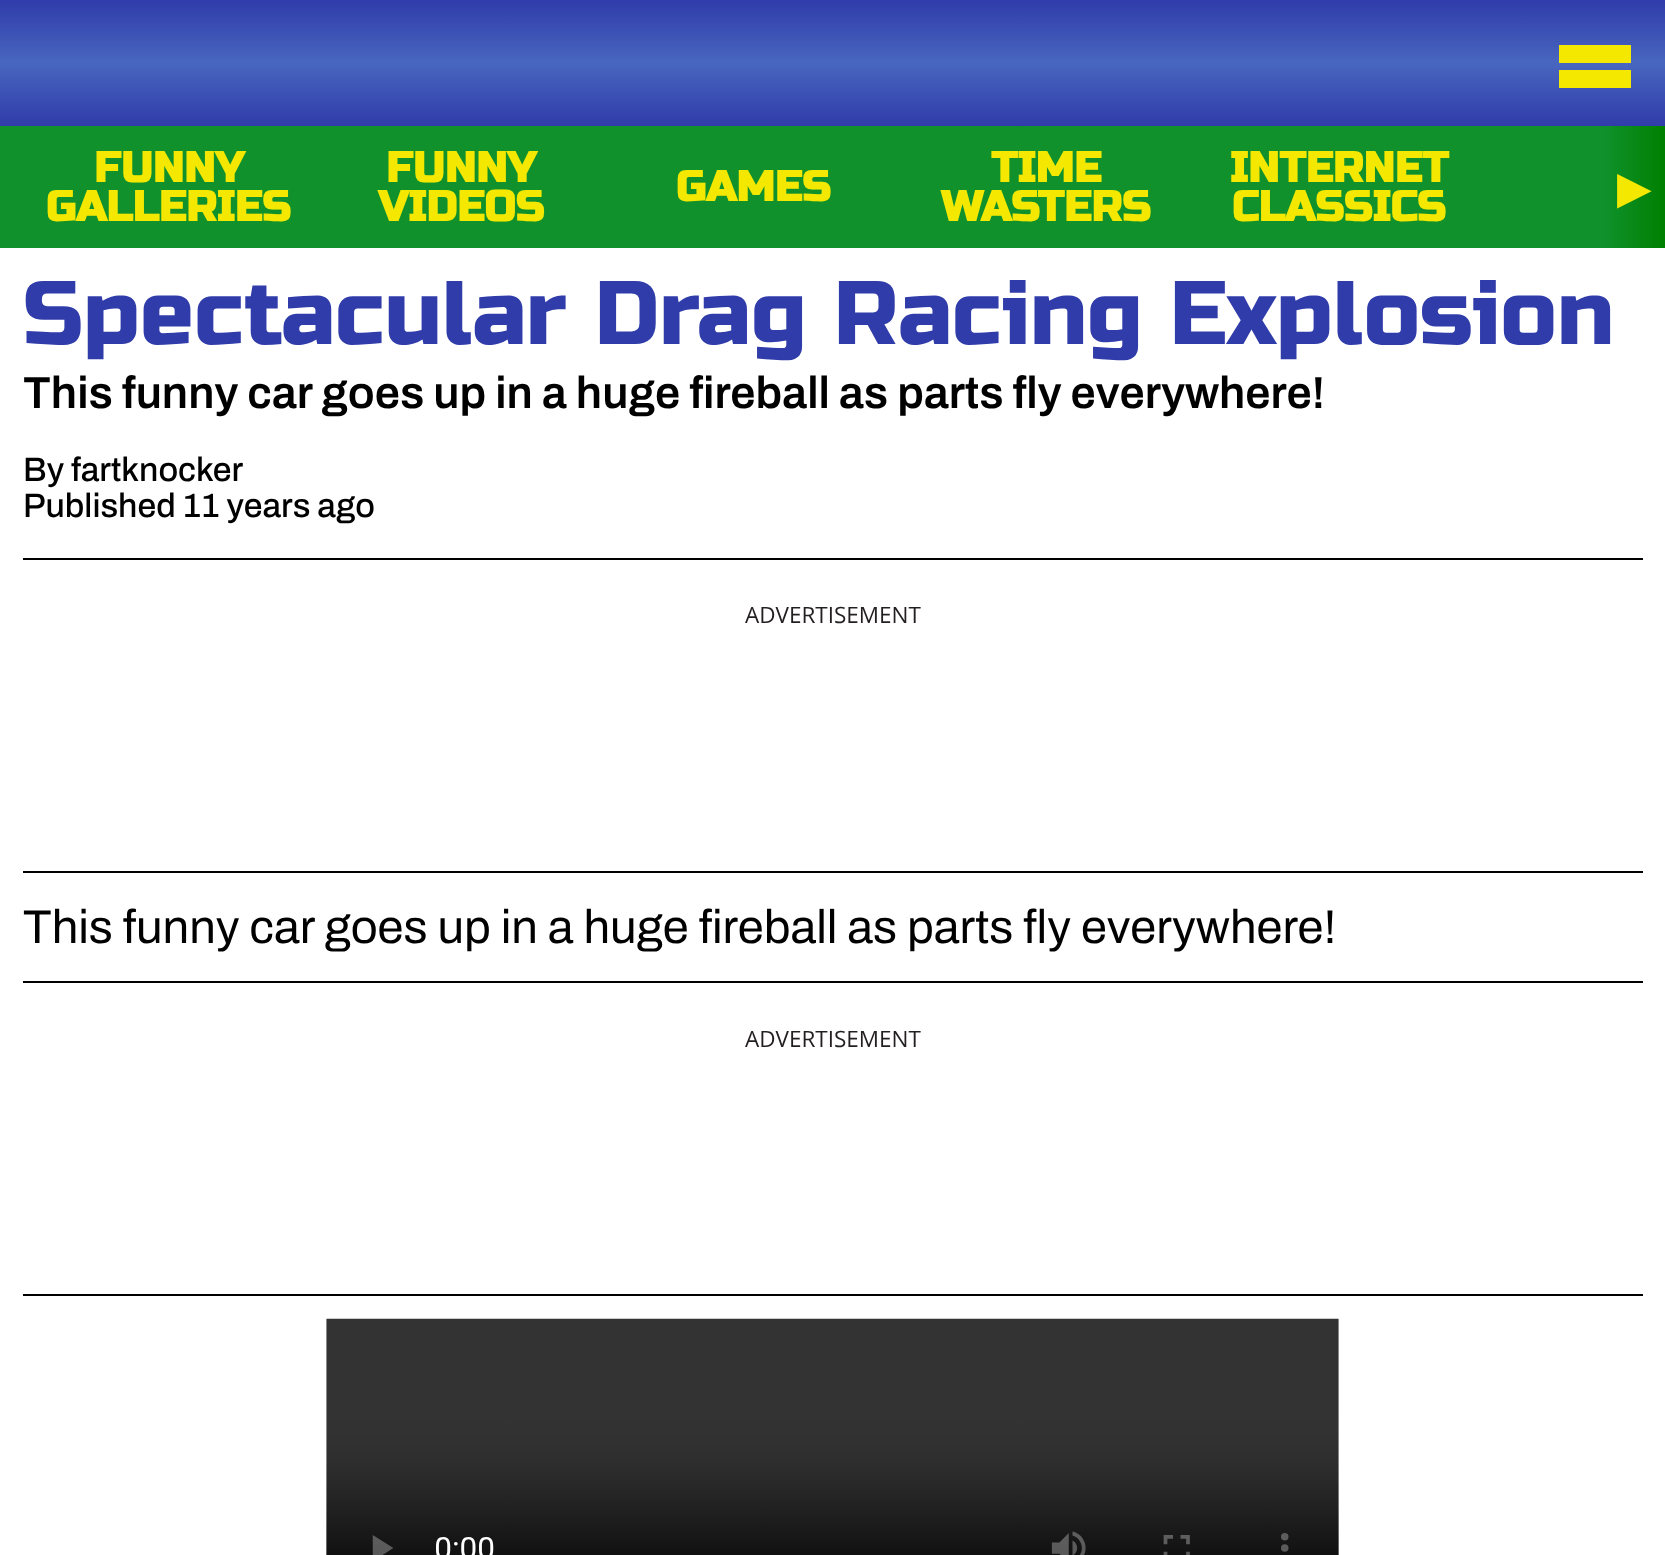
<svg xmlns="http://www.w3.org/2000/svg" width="1665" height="1555">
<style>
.a{font:bold 42.75px Russo One;fill:#f5e800}
.b{font:45px DejaVu Sans;fill:#f5e800}
.c{font:90px Russo One;fill:#303caa}
.d{font:600 45px Archivo;fill:#000}
.e{font:500 33.75px Archivo;fill:#000}
.f{font:22.5px Open Sans;fill:#231f20}
.g{font:47.25px Archivo;fill:#000}
</style>
<defs>
<linearGradient id="g1" gradientUnits="userSpaceOnUse" x1="833" y1="0" x2="833" y2="126"><stop offset="0" stop-color="#303caa"/><stop offset="0.5" stop-color="#4866bf"/><stop offset="1" stop-color="#303caa"/></linearGradient>
<linearGradient id="g2" gradientUnits="userSpaceOnUse" x1="1665" y1="187" x2="1604" y2="187"><stop offset="0" stop-color="#008000"/><stop offset="1" stop-color="#10912c"/></linearGradient>
</defs>
<rect width="100%" height="100%" fill="#fff"/>
<path fill="url(#g1)" d="M0 0h1665v126H0z"/>
<path fill="#f5e800" d="M1559 45h72v18H1559z"/>
<path fill="#f5e800" d="M1559 70h72v18H1559z"/>
<path fill="#10912c" d="M0 126h1604v122H0z"/>
<path fill="url(#g2)" d="M1604 126h61v122H1604z"/>
<path fill="#000" d="M23 558h1620v2H23z"/>
<path fill="#000" d="M23 871h1620v2H23z"/>
<path fill="#000" d="M23 981h1620v2H23z"/>
<path fill="#000" d="M23 1294h1620v2H23z"/>
<image href="1.png" x="326" y="1318" width="1013" height="237"/>
<text class="a" x="94" y="182">FUNNY</text>
<text class="a" x="46" y="221">GALLERIES</text>
<text class="a" x="386" y="182">FUNNY</text>
<text class="a" x="378" y="221">VIDEOS</text>
<text class="a" x="676" y="201">GAMES</text>
<text class="a" x="991" y="182">TIME</text>
<text class="a" x="941" y="221">WASTERS</text>
<text class="a" x="1230" y="182">INTERNET</text>
<text class="a" x="1232" y="221">CLASSICS</text>
<text class="b" x="1617" y="203">▶</text>
<text class="c" x="23" y="344">Spectacular Drag Racing Explosion</text>
<text class="d" x="23" y="408">This funny car goes up in a huge fireball as parts fly everywhere!</text>
<text class="e" x="23" y="481">By fartknocker</text>
<text class="e" x="23" y="517">Published 11 years ago</text>
<text class="f" x="745" y="623">ADVERTISEMENT</text>
<text class="g" x="23" y="943">This funny car goes up in a huge fireball as parts fly everywhere!</text>
<text class="f" x="745" y="1047">ADVERTISEMENT</text>
</svg>
